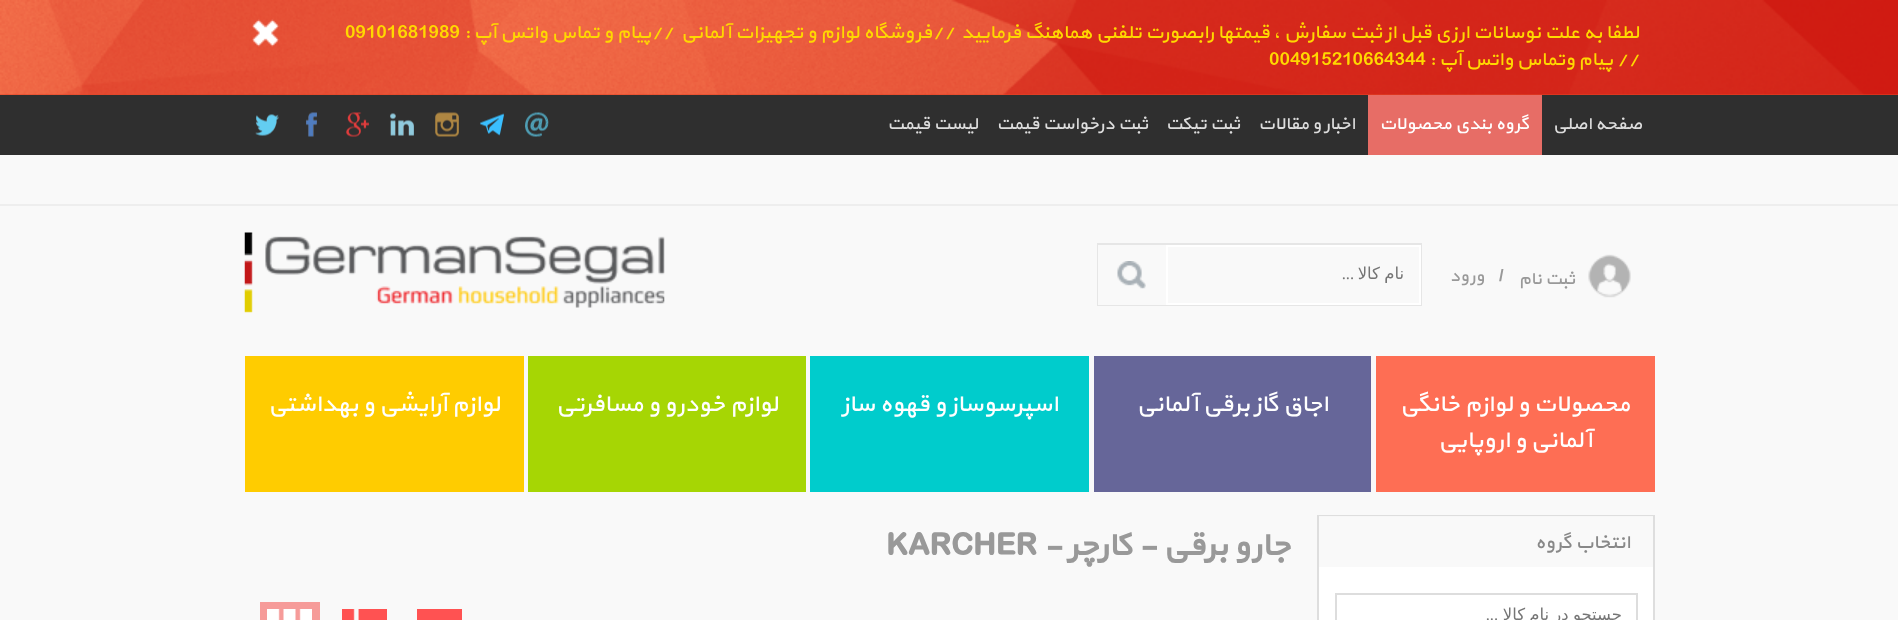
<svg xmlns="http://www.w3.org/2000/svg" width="1898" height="620">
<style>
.a{font:19.5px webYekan;direction:rtl;fill:#ffd800}
.b{font:19.5px webYekan;fill:#ffd800}
.c{font:18px webYekan;direction:rtl;fill:#ddd}
.d{font:18px webYekan;direction:rtl;fill:#fff}
.e{font:18px webYekan;direction:rtl;fill:#999}
.f{font:bold 16.5px Liberation Sans;fill:#999}
.g{font:16.5px DejaVu Sans;direction:rtl;fill:#757575}
.h{font:16.5px Liberation Serif;direction:rtl;fill:#757575}
.i{font:24px webYekan;direction:rtl;fill:#fff}
.j{font:19.5px webYekan;direction:rtl;fill:#888}
.k{font:bold 33px webYekan;direction:rtl;fill:#999}
.l{font:bold 33px webYekan;fill:#999}
</style>
<defs>
<clipPath id="clip1"><path d="M1352 605h270v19H1352z"/></clipPath>
</defs>
<rect width="100%" height="100%" fill="#f9f9f9"/>
<path fill="#e44525" d="M0 94h1898v1H0z"/>
<image href="1.png" x="0" y="0" width="1898" height="95"/>
<image href="2.png" x="252" y="19" width="28" height="28"/>
<path fill="#2f2f2f" d="M0 95h1898v60H0z"/>
<path fill="#e76d66" d="M1368 95h174v60H1368z"/>
<image href="3.png" x="525" y="112" width="24" height="25"/>
<image href="4.png" x="480" y="113" width="24" height="23"/>
<image href="5.png" x="435" y="112" width="24" height="25"/>
<image href="6.png" x="390" y="113" width="24" height="23"/>
<image href="7.png" x="346" y="112" width="23" height="25"/>
<image href="8.png" x="306" y="112" width="11" height="25"/>
<image href="9.png" x="255" y="114" width="24" height="22"/>
<path fill="#eee" d="M0 204h1898v2H0z"/>
<image href="10.png" x="1588" y="254" width="43" height="44"/>
<path fill="none" stroke="#e6e6e6" stroke-width="2" d="M1098 244h323v61H1098z"/>
<path fill="none" stroke="#fff" stroke-width="2" d="M1167 246h253v58H1167z"/>
<path fill="#f9f9f9" d="M1098 245h68v60H1098z"/>
<image href="11.png" x="1117" y="261" width="29" height="28"/>
<image href="12.png" x="244" y="232" width="421" height="81"/>
<path fill="#fe6e54" d="M1376 356h279v136H1376z"/>
<path fill="#669" d="M1094 356h277v136H1094z"/>
<path fill="#0cc" d="M810 356h279v136H810z"/>
<path fill="#a6d604" d="M528 356h278v136H528z"/>
<path fill="#fc0" d="M245 356h279v136H245z"/>
<path fill="none" stroke="#dedede" stroke-width="2" d="M1318 516h336v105H1318z"/>
<path fill="#f7f7f7" d="M1319 516h334v1H1319z"/>
<path fill="#fff" d="M1319 567h334v53H1319z"/>
<path fill="none" stroke="#ddd" stroke-width="2" d="M1336 594h301v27H1336z"/>
<path fill="#ff5252" d="M417 609h45v11H417z"/>
<image href="13.png" x="342" y="609" width="45" height="11"/>
<path fill="#f69b99" d="M260 602h60v18H260z"/>
<image href="14.png" x="267" y="609" width="45" height="11"/>
<text class="a" x="1639" y="38">لطفا به علت نوسانات ارزی قبل از ثبت سفارش ، قیمتها رابصورت تلفنی هماهنگ فرمایید</text>
<text class="b" x="932" y="38">//</text>
<text class="a" x="932" y="38">فروشگاه لوازم و تجهیزات</text>
<text class="a" x="731" y="38">آلمانی</text>
<text class="b" x="651" y="38">//</text>
<text class="a" x="651" y="38">پیام و تماس واتس آپ :</text>
<text class="b" x="345" y="38">09101681989</text>
<text class="a" x="1639" y="65">// پیام وتماس واتس آپ :</text>
<text class="b" x="1269" y="65">004915210664344</text>
<text class="c" x="1642" y="129">صفحه اصلی</text>
<text class="d" x="1529" y="129">گروه بندی محصولات</text>
<text class="c" x="1355" y="129">اخبار و مقالات</text>
<text class="c" x="1240" y="129">ثبت تیکت</text>
<text class="c" x="1148" y="129">ثبت درخواست قیمت</text>
<text class="c" x="978" y="129">لیست قیمت</text>
<text class="e" x="1575" y="284">ثبت نام</text>
<text class="f" x="1499" y="281">/</text>
<text class="e" x="1484" y="281">ورود</text>
<text class="g" x="1404" y="279" word-spacing="-1">نام کالا</text>
<text class="h" x="1354" y="279">...</text>
<text class="i" x="1630" y="411">محصولات و لوازم خانگی</text>
<text class="i" x="1592" y="447">آلمانی و اروپایی</text>
<text class="i" x="1328" y="411">اجاق گاز برقی آلمانی</text>
<text class="i" x="1058" y="411">اسپرسوساز و قهوه ساز</text>
<text class="i" x="778" y="411">لوازم خودرو و مسافرتی</text>
<text class="i" x="500" y="411">لوازم آرایشی و بهداشتی</text>
<text class="j" x="1630" y="548">انتخاب گروه</text>
<g clip-path="url(#clip1)">
<text class="g" x="1622" y="620" word-spacing="-1">جستجو در نام کالا</text>
</g>
<text class="h" x="1498" y="620">...</text>
<text class="k" x="1290" y="555">جارو برقی - کارچر -</text>
<text class="l" x="886" y="555">KARCHER</text>
</svg>
